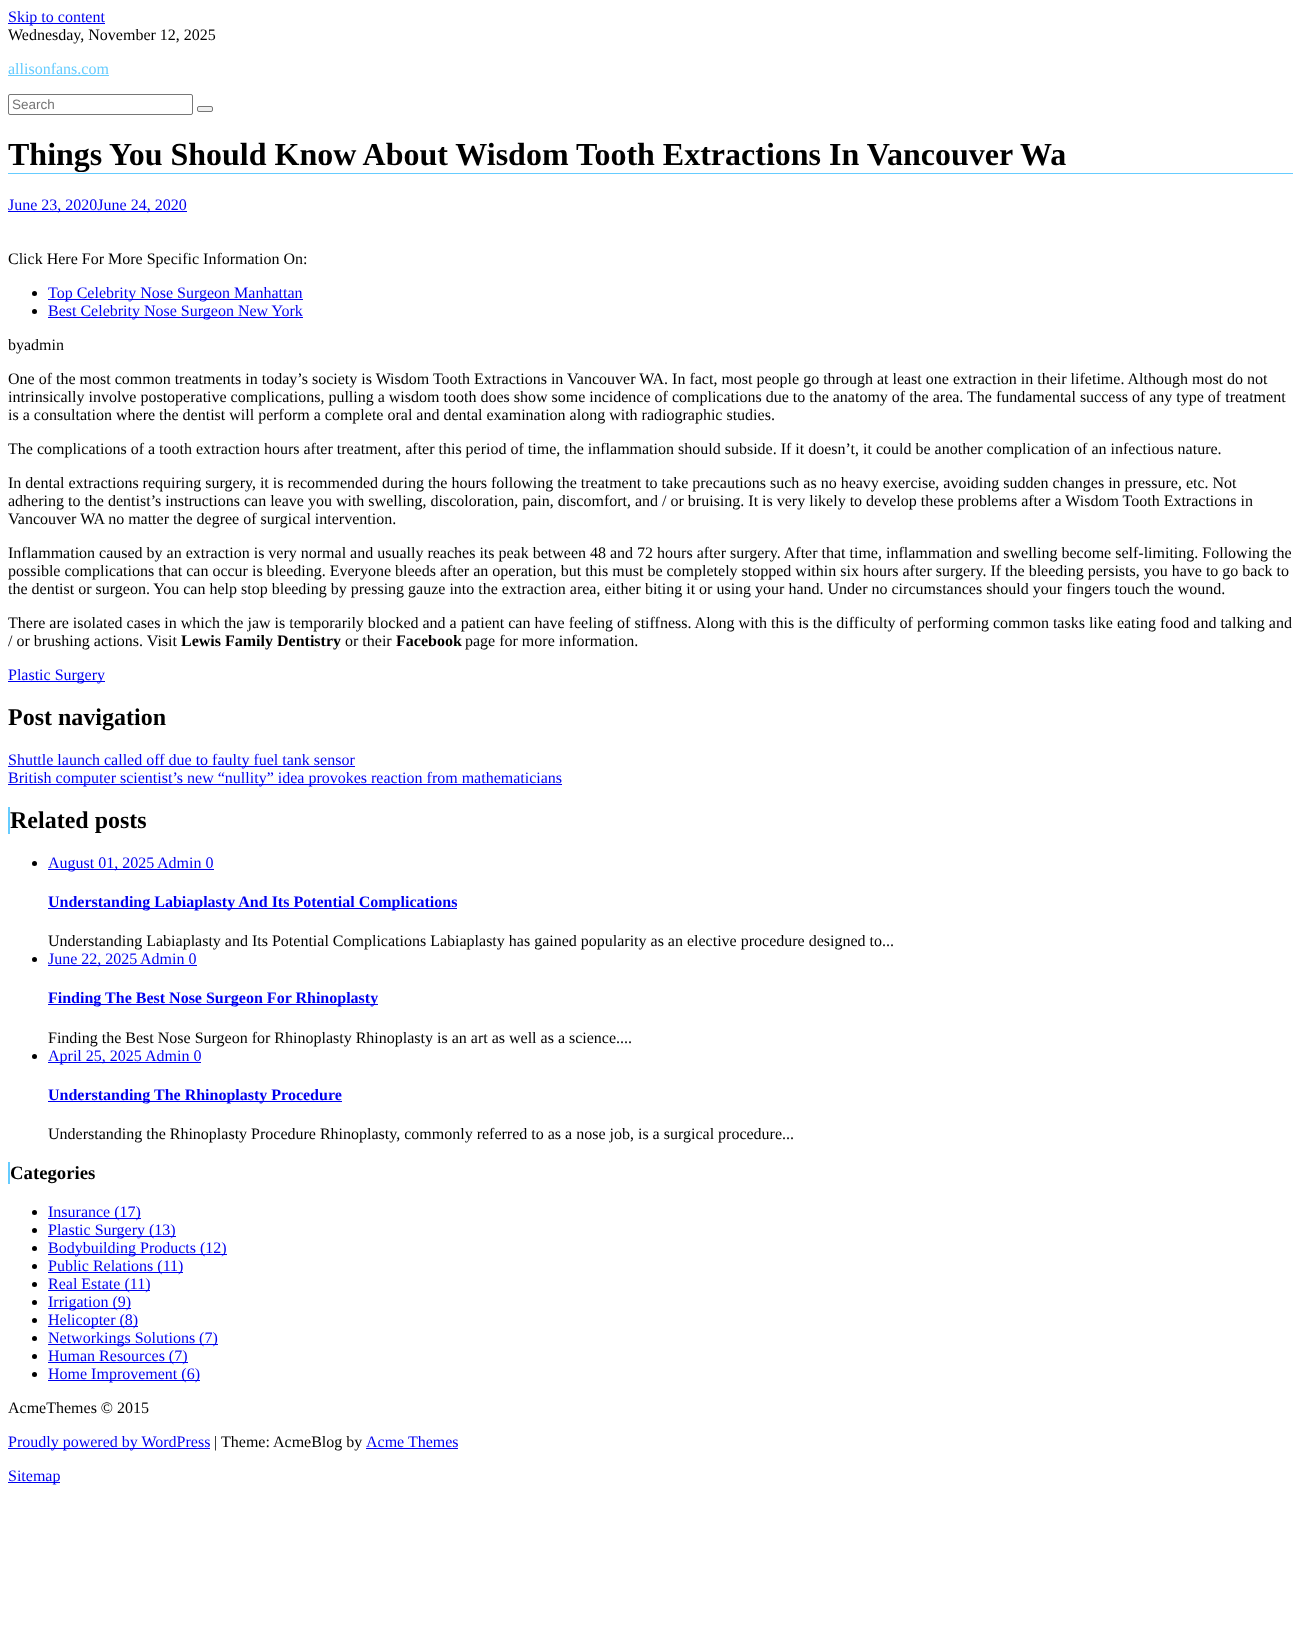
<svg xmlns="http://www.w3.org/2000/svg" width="1301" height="1635">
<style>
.a{font:16px Liberation Serif;fill:#00e}
.b{font:16px Liberation Serif;fill:#000}
.c{font:16px Liberation Serif;fill:#6cf}
.d{font:13.5px Liberation Sans;fill:#757575}
.e{font:bold 32px Liberation Serif;fill:#000}
.f{font:bold 16px Liberation Serif;fill:#000}
.g{font:bold 24px Liberation Serif;fill:#000}
.h{font:bold 16px Liberation Serif;fill:#00e}
.i{font:bold 18.75px Liberation Serif;fill:#000}
</style>
<rect width="100%" height="100%" fill="#fff"/>
<path fill="#00e" d="M8 23h97v1H8z"/>
<path fill="#6cf" d="M8 75h101v1H8z"/>
<rect fill="none" stroke="#767676" x="8.5" y="94.5" width="184" height="20" rx="1.5"/>
<rect fill="#efefef" stroke="#767676" x="197.5" y="106.5" width="15" height="5" rx="1.5"/>
<path fill="#6cf" d="M8 173h1285v1H8z"/>
<path fill="#00e" d="M8 211h179v1H8z"/>
<circle fill="#000" cx="34.5" cy="293.5" r="2.5"/>
<path fill="#00e" d="M48 299h255v1H48z"/>
<circle fill="#000" cx="34.5" cy="311.5" r="2.5"/>
<path fill="#00e" d="M48 317h255v1H48z"/>
<path fill="#00e" d="M8 681h97v1H8z"/>
<path fill="#00e" d="M8 766h347v1H8z"/>
<path fill="#00e" d="M8 784h554v1H8z"/>
<path fill="#6cf" d="M8 807h2v27H8z"/>
<circle fill="#000" cx="34.5" cy="863.5" r="2.5"/>
<path fill="#00e" d="M48 869h166v1H48z"/>
<path fill="#00e" d="M48 908h409v1H48z"/>
<circle fill="#000" cx="34.5" cy="959.5" r="2.5"/>
<path fill="#00e" d="M48 965h149v1H48z"/>
<path fill="#00e" d="M48 1004h330v1H48z"/>
<circle fill="#000" cx="34.5" cy="1056.5" r="2.5"/>
<path fill="#00e" d="M48 1062h153v1H48z"/>
<path fill="#00e" d="M48 1101h294v1H48z"/>
<path fill="#6cf" d="M8 1162h2v22H8z"/>
<circle fill="#000" cx="34.5" cy="1212.5" r="2.5"/>
<path fill="#00e" d="M48 1218h93v1H48z"/>
<circle fill="#000" cx="34.5" cy="1230.5" r="2.5"/>
<path fill="#00e" d="M48 1236h128v1H48z"/>
<circle fill="#000" cx="34.5" cy="1248.5" r="2.5"/>
<path fill="#00e" d="M48 1254h179v1H48z"/>
<circle fill="#000" cx="34.5" cy="1266.5" r="2.5"/>
<path fill="#00e" d="M48 1272h135v1H48z"/>
<circle fill="#000" cx="34.5" cy="1284.5" r="2.5"/>
<path fill="#00e" d="M48 1290h102v1H48z"/>
<circle fill="#000" cx="34.5" cy="1302.5" r="2.5"/>
<path fill="#00e" d="M48 1308h83v1H48z"/>
<circle fill="#000" cx="34.5" cy="1320.5" r="2.5"/>
<path fill="#00e" d="M48 1326h90v1H48z"/>
<circle fill="#000" cx="34.5" cy="1338.5" r="2.5"/>
<path fill="#00e" d="M48 1344h170v1H48z"/>
<circle fill="#000" cx="34.5" cy="1356.5" r="2.5"/>
<path fill="#00e" d="M48 1362h140v1H48z"/>
<circle fill="#000" cx="34.5" cy="1374.5" r="2.5"/>
<path fill="#00e" d="M48 1380h152v1H48z"/>
<path fill="#00e" d="M8 1448h202v1H8z"/>
<path fill="#00e" d="M366 1448h92v1H366z"/>
<path fill="#00e" d="M8 1482h52v1H8z"/>
<text class="a" x="8" y="22">Skip to content</text>
<text class="b" x="8" y="40">Wednesday, November 12, 2025</text>
<text class="c" x="8" y="74">allisonfans.com</text>
<text class="d" x="12" y="109">Search</text>
<text class="e" x="8" y="165">Things You Should Know About Wisdom Tooth Extractions In Vancouver Wa</text>
<text class="a" x="8" y="210">June 23, 2020June 24, 2020</text>
<text class="b" x="8" y="264">Click Here For More Specific Information On:</text>
<text class="a" x="48" y="298">Top Celebrity Nose Surgeon Manhattan</text>
<text class="a" x="48" y="316">Best Celebrity Nose Surgeon New York</text>
<text class="b" x="8" y="350">byadmin</text>
<text class="b" x="8" y="384">One of the most common treatments in today’s society is Wisdom Tooth Extractions in Vancouver WA. In fact, most people go through at least one extraction in their lifetime. Although most do not</text>
<text class="b" x="8" y="402">intrinsically involve postoperative complications, pulling a wisdom tooth does show some incidence of complications due to the anatomy of the area. The fundamental success of any type of treatment</text>
<text class="b" x="8" y="420">is a consultation where the dentist will perform a complete oral and dental examination along with radiographic studies.</text>
<text class="b" x="8" y="454">The complications of a tooth extraction hours after treatment, after this period of time, the inflammation should subside. If it doesn’t, it could be another complication of an infectious nature.</text>
<text class="b" x="8" y="488">In dental extractions requiring surgery, it is recommended during the hours following the treatment to take precautions such as no heavy exercise, avoiding sudden changes in pressure, etc. Not</text>
<text class="b" x="8" y="506">adhering to the dentist’s instructions can leave you with swelling, discoloration, pain, discomfort, and / or bruising. It is very likely to develop these problems after a Wisdom Tooth Extractions in</text>
<text class="b" x="8" y="524">Vancouver WA no matter the degree of surgical intervention.</text>
<text class="b" x="8" y="558">Inflammation caused by an extraction is very normal and usually reaches its peak between 48 and 72 hours after surgery. After that time, inflammation and swelling become self-limiting. Following the</text>
<text class="b" x="8" y="576">possible complications that can occur is bleeding. Everyone bleeds after an operation, but this must be completely stopped within six hours after surgery. If the bleeding persists, you have to go back to</text>
<text class="b" x="8" y="594">the dentist or surgeon. You can help stop bleeding by pressing gauze into the extraction area, either biting it or using your hand. Under no circumstances should your fingers touch the wound.</text>
<text class="b" x="8" y="628">There are isolated cases in which the jaw is temporarily blocked and a patient can have feeling of stiffness. Along with this is the difficulty of performing common tasks like eating food and talking and</text>
<text class="b" x="8" y="646">/ or brushing actions. Visit</text>
<text class="f" x="181" y="646">Lewis Family Dentistry</text>
<text class="b" x="345" y="646">or their</text>
<text class="f" x="396" y="646">Facebook</text>
<text class="b" x="465" y="646">page for more information.</text>
<text class="a" x="8" y="680">Plastic Surgery</text>
<text class="g" x="8" y="725">Post navigation</text>
<text class="a" x="8" y="765">Shuttle launch called off due to faulty fuel tank sensor</text>
<text class="a" x="8" y="783">British computer scientist’s new “nullity” idea provokes reaction from mathematicians</text>
<text class="g" x="10" y="828">Related posts</text>
<text class="a" x="48" y="868">August 01, 2025</text>
<text class="a" x="157" y="868">Admin 0</text>
<text class="h" x="48" y="907">Understanding Labiaplasty And Its Potential Complications</text>
<text class="b" x="48" y="946">Understanding Labiaplasty and Its Potential Complications Labiaplasty has gained popularity as an elective procedure designed to...</text>
<text class="a" x="48" y="964">June 22, 2025</text>
<text class="a" x="140" y="964">Admin 0</text>
<text class="h" x="48" y="1003">Finding The Best Nose Surgeon For Rhinoplasty</text>
<text class="b" x="48" y="1043">Finding the Best Nose Surgeon for Rhinoplasty Rhinoplasty is an art as well as a science....</text>
<text class="a" x="48" y="1061">April 25, 2025</text>
<text class="a" x="145" y="1061">Admin 0</text>
<text class="h" x="48" y="1100">Understanding The Rhinoplasty Procedure</text>
<text class="b" x="48" y="1139">Understanding the Rhinoplasty Procedure Rhinoplasty, commonly referred to as a nose job, is a surgical procedure...</text>
<text class="i" x="10" y="1179">Categories</text>
<text class="a" x="48" y="1217">Insurance (17)</text>
<text class="a" x="48" y="1235">Plastic Surgery (13)</text>
<text class="a" x="48" y="1253">Bodybuilding Products (12)</text>
<text class="a" x="48" y="1271">Public Relations (11)</text>
<text class="a" x="48" y="1289">Real Estate (11)</text>
<text class="a" x="48" y="1307">Irrigation (9)</text>
<text class="a" x="48" y="1325">Helicopter (8)</text>
<text class="a" x="48" y="1343">Networkings Solutions (7)</text>
<text class="a" x="48" y="1361">Human Resources (7)</text>
<text class="a" x="48" y="1379">Home Improvement (6)</text>
<text class="b" x="8" y="1413">AcmeThemes © 2015</text>
<text class="a" x="8" y="1447">Proudly powered by WordPress</text>
<text class="b" x="214" y="1447">|</text>
<text class="b" x="221" y="1447">Theme: AcmeBlog by</text>
<text class="a" x="366" y="1447">Acme Themes</text>
<text class="a" x="8" y="1481">Sitemap</text>
</svg>
